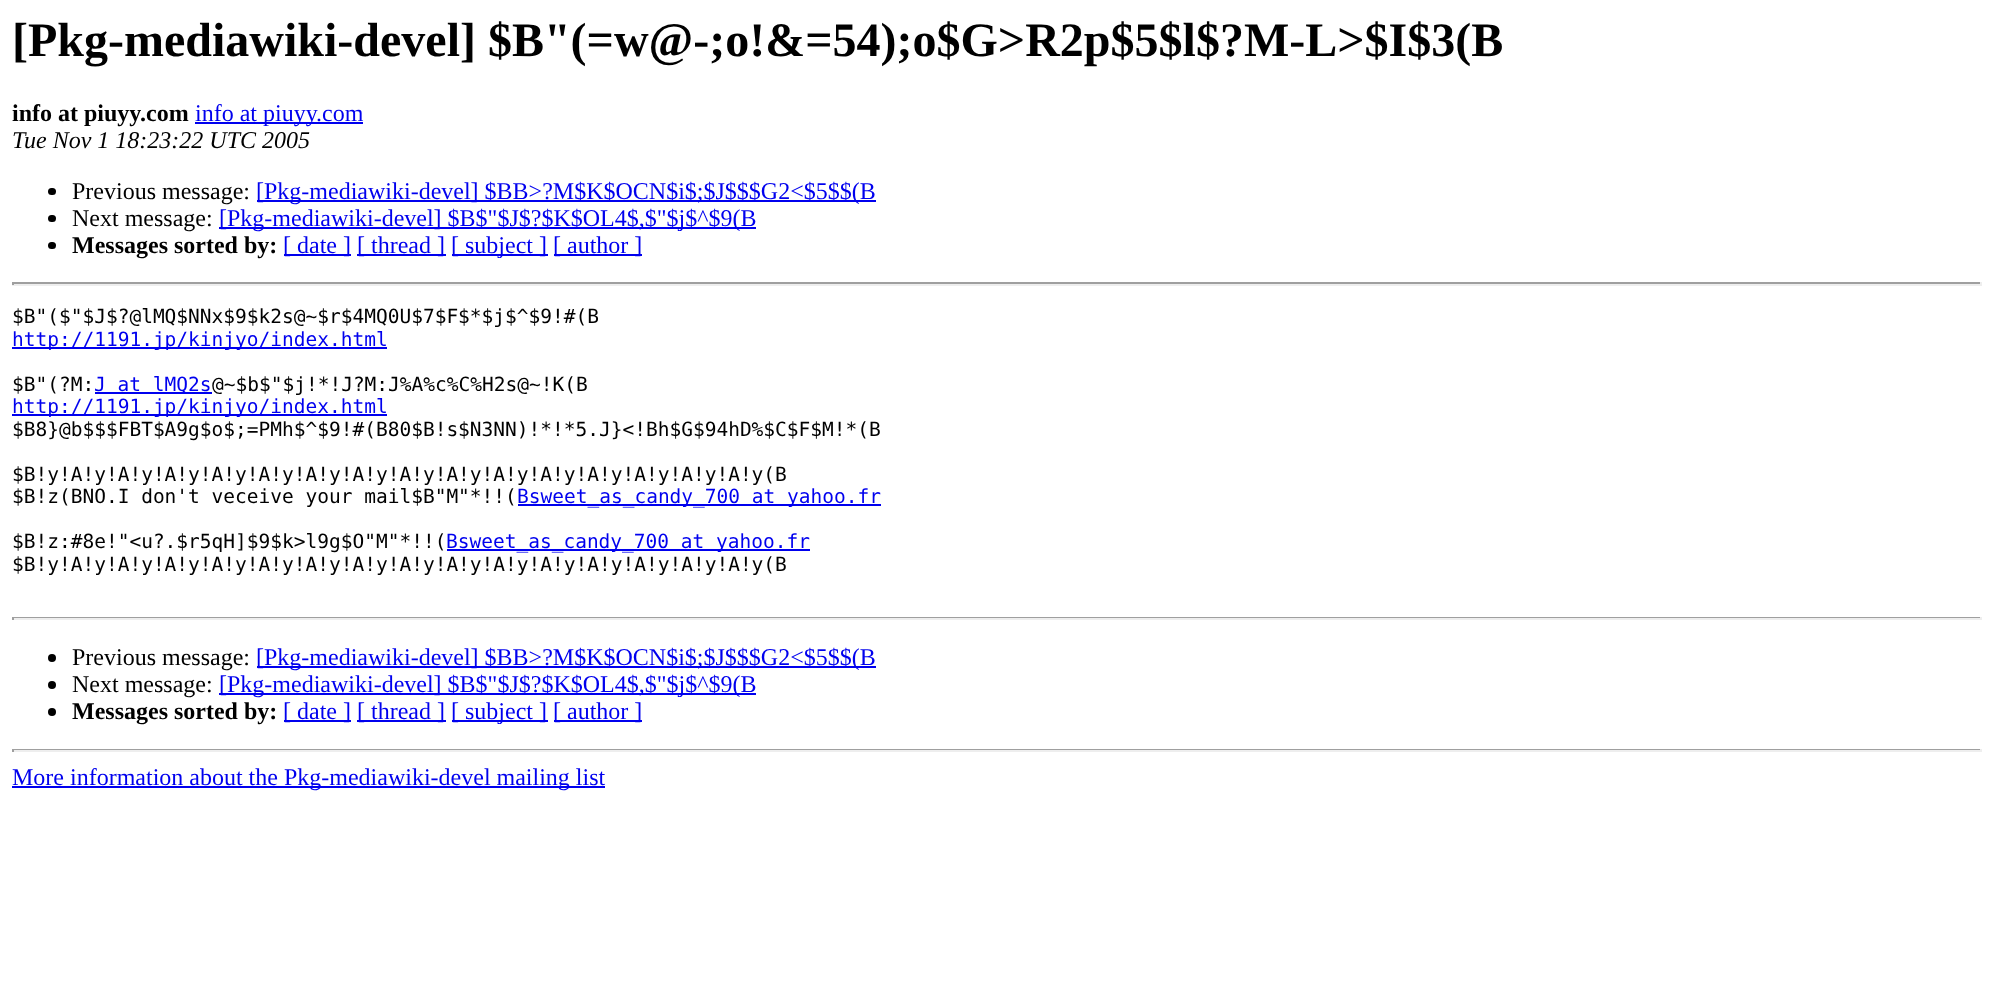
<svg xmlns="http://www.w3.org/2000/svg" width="1993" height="1000">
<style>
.a{font:bold 48px Liberation Serif;fill:#000}
.b{font:bold 24px Liberation Serif;fill:#000}
.c{font:24px Liberation Serif;fill:#00e}
.d{font:italic 24px Liberation Serif;fill:#000}
.e{font:24px Liberation Serif;fill:#000}
.f{font:19.5px DejaVu Sans Mono;fill:#000}
.g{font:19.5px DejaVu Sans Mono;fill:#00e}
</style>
<rect width="100%" height="100%" fill="#fff"/>
<path fill="#00e" d="M195 122h168v2H195z"/>
<rect fill="#000" x="48" y="188" width="8" height="7" rx="3.5"/>
<path fill="#00e" d="M257 200h619v2H257z"/>
<rect fill="#000" x="48" y="215" width="8" height="7" rx="3.5"/>
<path fill="#00e" d="M219 227h537v2H219z"/>
<rect fill="#000" x="48" y="242" width="8" height="7" rx="3.5"/>
<path fill="#00e" d="M284 254h67v2H284z"/>
<path fill="#00e" d="M357 254h89v2H357z"/>
<path fill="#00e" d="M452 254h96v2H452z"/>
<path fill="#00e" d="M554 254h88v2H554z"/>
<path fill="#9f9f9f" d="M12 282h1970v2H12z"/>
<path fill="#eee" d="M1980 282h2v3H1980z"/>
<path fill="#eee" d="M12 284h1970v2H12z"/>
<path fill="#9f9f9f" d="M12 282h2v3H12z"/>
<path fill="#00e" d="M12 347h375v2H12z"/>
<path fill="#00e" d="M95 392h117v2H95z"/>
<path fill="#00e" d="M12 414h375v2H12z"/>
<path fill="#00e" d="M518 504h363v2H518z"/>
<path fill="#00e" d="M447 549h363v2H447z"/>
<path fill="#9f9f9f" d="M12 617h1970v1H12z"/>
<path fill="#eee" d="M1980 617h2v3H1980z"/>
<path fill="#eee" d="M12 618h1970v2H12z"/>
<path fill="#9f9f9f" d="M12 617h2v3H12z"/>
<circle fill="#000" cx="52" cy="658" r="4"/>
<path fill="#00e" d="M257 666h619v2H257z"/>
<circle fill="#000" cx="52" cy="685" r="4"/>
<path fill="#00e" d="M219 693h537v2H219z"/>
<circle fill="#000" cx="52" cy="712" r="4"/>
<path fill="#00e" d="M284 720h67v2H284z"/>
<path fill="#00e" d="M357 720h89v2H357z"/>
<path fill="#00e" d="M452 720h96v2H452z"/>
<path fill="#00e" d="M554 720h88v2H554z"/>
<path fill="#9f9f9f" d="M12 749h1970v1H12z"/>
<path fill="#eee" d="M1980 749h2v3H1980z"/>
<path fill="#eee" d="M12 750h1970v2H12z"/>
<path fill="#9f9f9f" d="M12 749h2v3H12z"/>
<path fill="#00e" d="M12 786h593v2H12z"/>
<text class="a" x="12" y="56">[Pkg-mediawiki-devel] $B"(=w@-;o!&amp;=54);o$G&gt;R2p$5$l$?M-L&gt;$I$3(B</text>
<text class="b" x="12" y="121">info at piuyy.com</text>
<text class="c" x="195" y="121">info at piuyy.com</text>
<text class="d" x="12" y="148">Tue Nov 1 18:23:22 UTC 2005</text>
<text class="e" x="72" y="199">Previous message:</text>
<text class="c" x="256" y="199">[Pkg-mediawiki-devel] $BB&gt;?M$K$OCN$i$;$J$$$G2&lt;$5$$(B</text>
<text class="e" x="72" y="226">Next message:</text>
<text class="c" x="219" y="226">[Pkg-mediawiki-devel] $B$"$J$?$K$OL4$,$"$j$^$9(B</text>
<text class="b" x="72" y="253">Messages sorted by:</text>
<text class="c" x="283" y="253">[ date ]</text>
<text class="c" x="357" y="253">[ thread ]</text>
<text class="c" x="451" y="253">[ subject ]</text>
<text class="c" x="553" y="253">[ author ]</text>
<text class="f" x="12" y="323">$B"($"$J$?@lMQ$NNx$9$k2s@~$r$4MQ0U$7$F$*$j$^$9!#(B</text>
<text class="g" x="12" y="346">http://1191.jp/kinjyo/index.html</text>
<text class="f" x="12" y="391">$B"(?M:</text>
<text class="g" x="94" y="391">J at lMQ2s</text>
<text class="f" x="212" y="391">@~$b$"$j!*!J?M:J%A%c%C%H2s@~!K(B</text>
<text class="g" x="12" y="413">http://1191.jp/kinjyo/index.html</text>
<text class="f" x="12" y="436">$B8}@b$$$FBT$A9g$o$;=PMh$^$9!#(B80$B!s$N3NN)!*!*5.J}&lt;!Bh$G$94hD%$C$F$M!*(B</text>
<text class="f" x="12" y="481">$B!y!A!y!A!y!A!y!A!y!A!y!A!y!A!y!A!y!A!y!A!y!A!y!A!y!A!y!A!y!A!y(B</text>
<text class="f" x="12" y="503">$B!z(BNO.I don't veceive your mail$B"M"*!!(</text>
<text class="g" x="517" y="503">Bsweet_as_candy_700 at yahoo.fr</text>
<text class="f" x="12" y="548">$B!z:#8e!"&lt;u?.$r5qH]$9$k&gt;l9g$O"M"*!!(</text>
<text class="g" x="446" y="548">Bsweet_as_candy_700 at yahoo.fr</text>
<text class="f" x="12" y="571">$B!y!A!y!A!y!A!y!A!y!A!y!A!y!A!y!A!y!A!y!A!y!A!y!A!y!A!y!A!y!A!y(B</text>
<text class="e" x="72" y="665">Previous message:</text>
<text class="c" x="256" y="665">[Pkg-mediawiki-devel] $BB&gt;?M$K$OCN$i$;$J$$$G2&lt;$5$$(B</text>
<text class="e" x="72" y="692">Next message:</text>
<text class="c" x="219" y="692">[Pkg-mediawiki-devel] $B$"$J$?$K$OL4$,$"$j$^$9(B</text>
<text class="b" x="72" y="719">Messages sorted by:</text>
<text class="c" x="283" y="719">[ date ]</text>
<text class="c" x="357" y="719">[ thread ]</text>
<text class="c" x="451" y="719">[ subject ]</text>
<text class="c" x="553" y="719">[ author ]</text>
<text class="c" x="12" y="785">More information about the Pkg-mediawiki-devel mailing list</text>
</svg>
